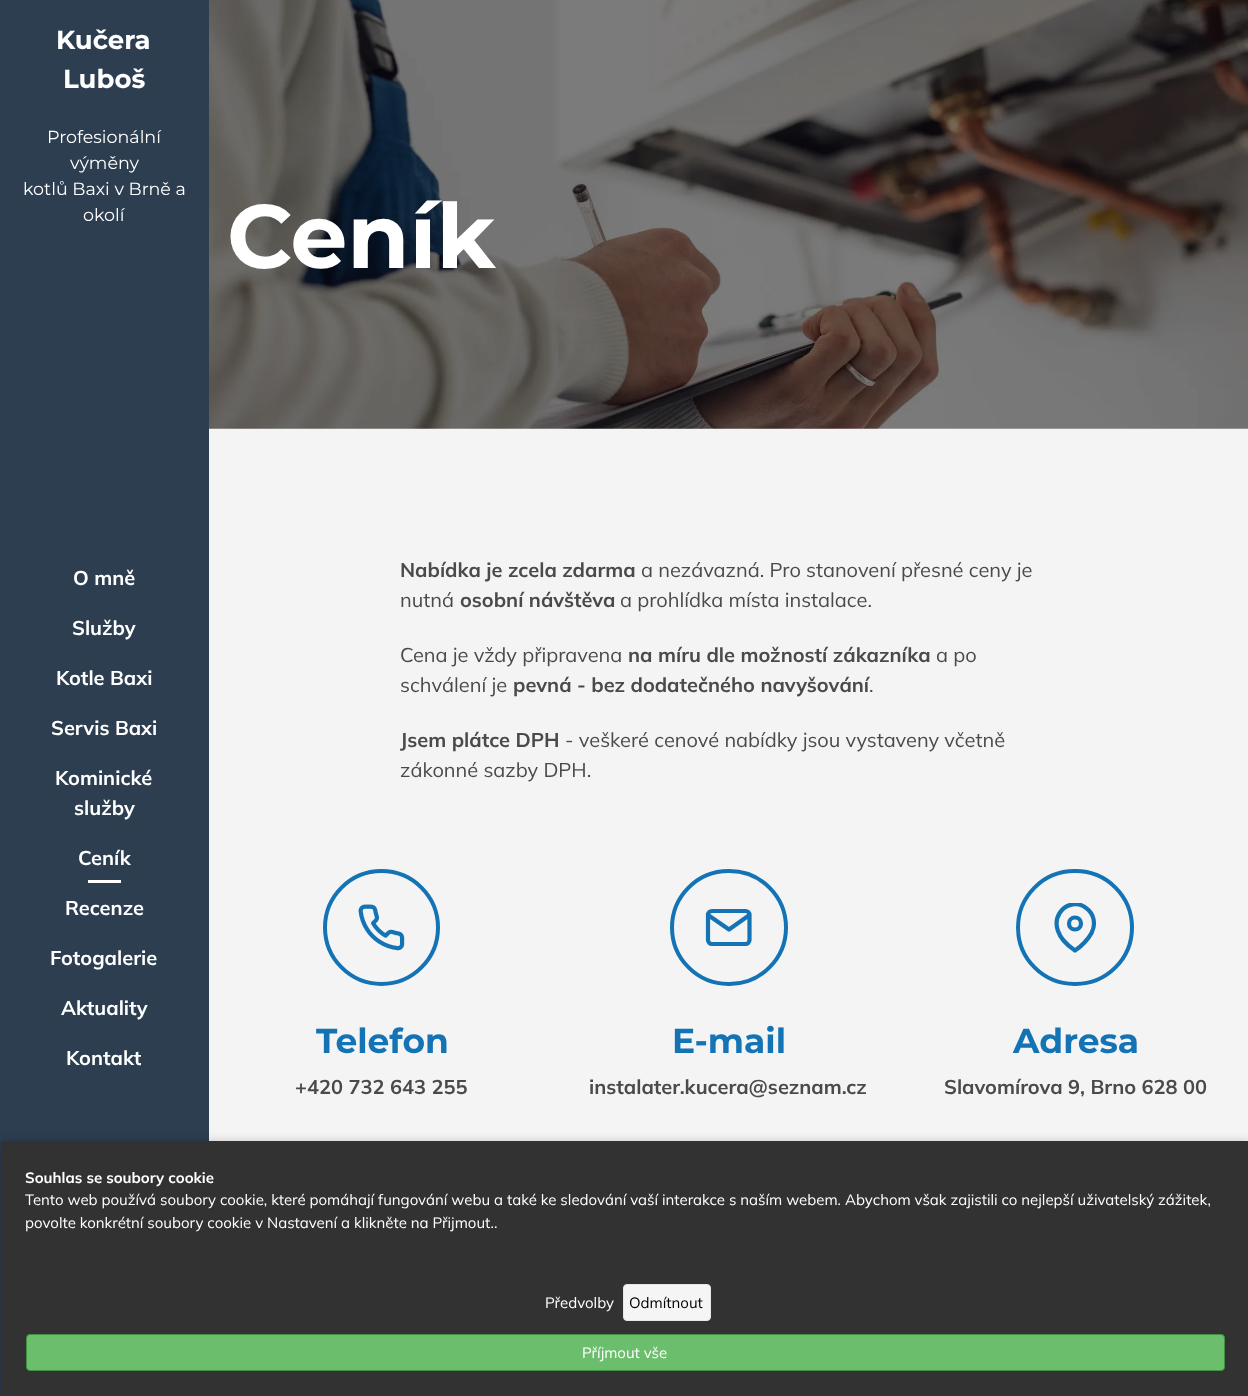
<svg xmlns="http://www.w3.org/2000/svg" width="1248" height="1396">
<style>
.a{font:bold 26px Montserrat;fill:#fff}
.b{font:17.5px Montserrat;fill:#fff}
.c{font:bold 20px Mulish;fill:#fff}
.d{font:bold 90px Montserrat;fill:#fff}
.e{font:bold 20px Mulish;fill:#4a4a4a}
.f{font:20px Mulish;fill:#4a4a4a}
.g{font:bold 34.5px Montserrat;fill:#1473b4}
.h{font:bold 15px Mulish;fill:#fff}
.i{font:15px Mulish;fill:#fff}
.j{font:15px Mulish;fill:#000}
</style>
<defs>
<clipPath id="clip1"><path d="M1050 903h50v50H1050z"/></clipPath>
</defs>
<rect width="100%" height="100%" fill="#f4f4f4"/>
<path fill="#2c3e50" d="M0 0h209v1396H0z"/>
<path fill="#fff" d="M88 880h33v3H88z"/>
<image href="1.png" x="209" y="0" width="1039" height="429"/>
<circle fill="none" stroke="#1473b4" stroke-width="4" cx="381.5" cy="927.5" r="56.5"/>
<image href="2.png" x="358" y="904" width="47" height="47"/>
<rect fill="none" stroke="#1473b4" stroke-width="4" x="672" y="871" width="114" height="113" rx="56.5"/>
<path fill="none" stroke="#1473b4" stroke-width="4.2" stroke-linecap="round" stroke-linejoin="round" d="M712 911h33.5c2 0 4 1.5 4 4v25c0 2.5-2 4-4 4h-33.5c-2 0-4-1.5-4-4v-25c0-2.5 2-4 4-4zm37.5 4l-20.5 14.5l-21-14.5"/>
<rect fill="none" stroke="#1473b4" stroke-width="4" x="1018" y="871" width="114" height="113" rx="56.5"/>
<g clip-path="url(#clip1)">
<path fill="none" stroke="#1473b4" stroke-width="4.2" stroke-linecap="round" stroke-linejoin="round" d="M1094 923.5c0 14.5-19 27-19 27c-39.5-26.5-6-60 13.5-40.5c3.5 3.5 5.5 8.5 5.5 13.5z"/>
</g>
<circle fill="none" stroke="#1473b4" stroke-width="4.2" cx="1075" cy="923.5" r="6"/>
<path fill="#0000004d" filter="blur(6px)" d="M1 1144h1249v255H1z"/>
<path fill="#323232" d="M1 1141h1247v255H1z"/>
<rect fill="#f5f5f5" stroke="#e7e7e7" x="623.5" y="1284.5" width="87" height="36" rx="3.5"/>
<rect fill="#6bbe6c" stroke="#3f9340" x="26.5" y="1334.5" width="1198" height="36" rx="3.5"/>
<text class="a" x="56" y="49">Kučera</text>
<text class="a" x="63" y="88">Luboš</text>
<text class="b" x="47" y="143">Profesionální</text>
<text class="b" x="70" y="169">výměny</text>
<text class="b" x="23" y="195">kotlů Baxi v Brně a</text>
<text class="b" x="83" y="221">okolí</text>
<text class="c" x="73" y="585">O mně</text>
<text class="c" x="72" y="635">Služby</text>
<text class="c" x="56" y="685">Kotle Baxi</text>
<text class="c" x="51" y="735">Servis Baxi</text>
<text class="c" x="55" y="785">Kominické</text>
<text class="c" x="74" y="815">služby</text>
<text class="c" x="78" y="865">Ceník</text>
<text class="c" x="65" y="915">Recenze</text>
<text class="c" x="50" y="965">Fotogalerie</text>
<text class="c" x="61" y="1015">Aktuality</text>
<text class="c" x="66" y="1065">Kontakt</text>
<text class="d" x="227" y="268">Ceník</text>
<text class="e" x="400" y="577">Nabídka je zcela zdarma</text>
<text class="f" x="641" y="577">a nezávazná. Pro stanovení přesné ceny je</text>
<text class="f" x="400" y="607">nutná</text>
<text class="e" x="460" y="607">osobní návštěva</text>
<text class="f" x="620" y="607">a prohlídka místa instalace.</text>
<text class="f" x="400" y="662">Cena je vždy připravena</text>
<text class="e" x="628" y="662">na míru dle možností zákazníka</text>
<text class="f" x="936" y="662">a po</text>
<text class="f" x="400" y="692">schválení je</text>
<text class="e" x="513" y="692">pevná - bez dodatečného navyšování</text>
<text class="f" x="869" y="692">.</text>
<text class="e" x="400" y="747">Jsem plátce DPH</text>
<text class="f" x="565" y="747">- veškeré cenové nabídky jsou vystaveny včetně</text>
<text class="f" x="400" y="777">zákonné sazby DPH.</text>
<text class="g" x="316" y="1053">Telefon</text>
<text class="e" x="295" y="1094">+420 732 643 255</text>
<text class="g" x="672" y="1053">E-mail</text>
<text class="e" x="589" y="1094">instalater.kucera@seznam.cz</text>
<text class="g" x="1013" y="1053">Adresa</text>
<text class="e" x="944" y="1094">Slavomírova 9, Brno 628 00</text>
<text class="h" x="25" y="1183">Souhlas se soubory cookie</text>
<text class="i" x="25" y="1205">Tento web používá soubory cookie, které pomáhají fungování webu a také ke sledování vaší interakce s naším webem. Abychom však zajistili co nejlepší uživatelský zážitek,</text>
<text class="i" x="25" y="1228">povolte konkrétní soubory cookie v Nastavení a klikněte na Přijmout..</text>
<text class="i" x="545" y="1308">Předvolby</text>
<text class="j" x="629" y="1308">Odmítnout</text>
<text class="i" x="582" y="1358">Příjmout vše</text>
</svg>
